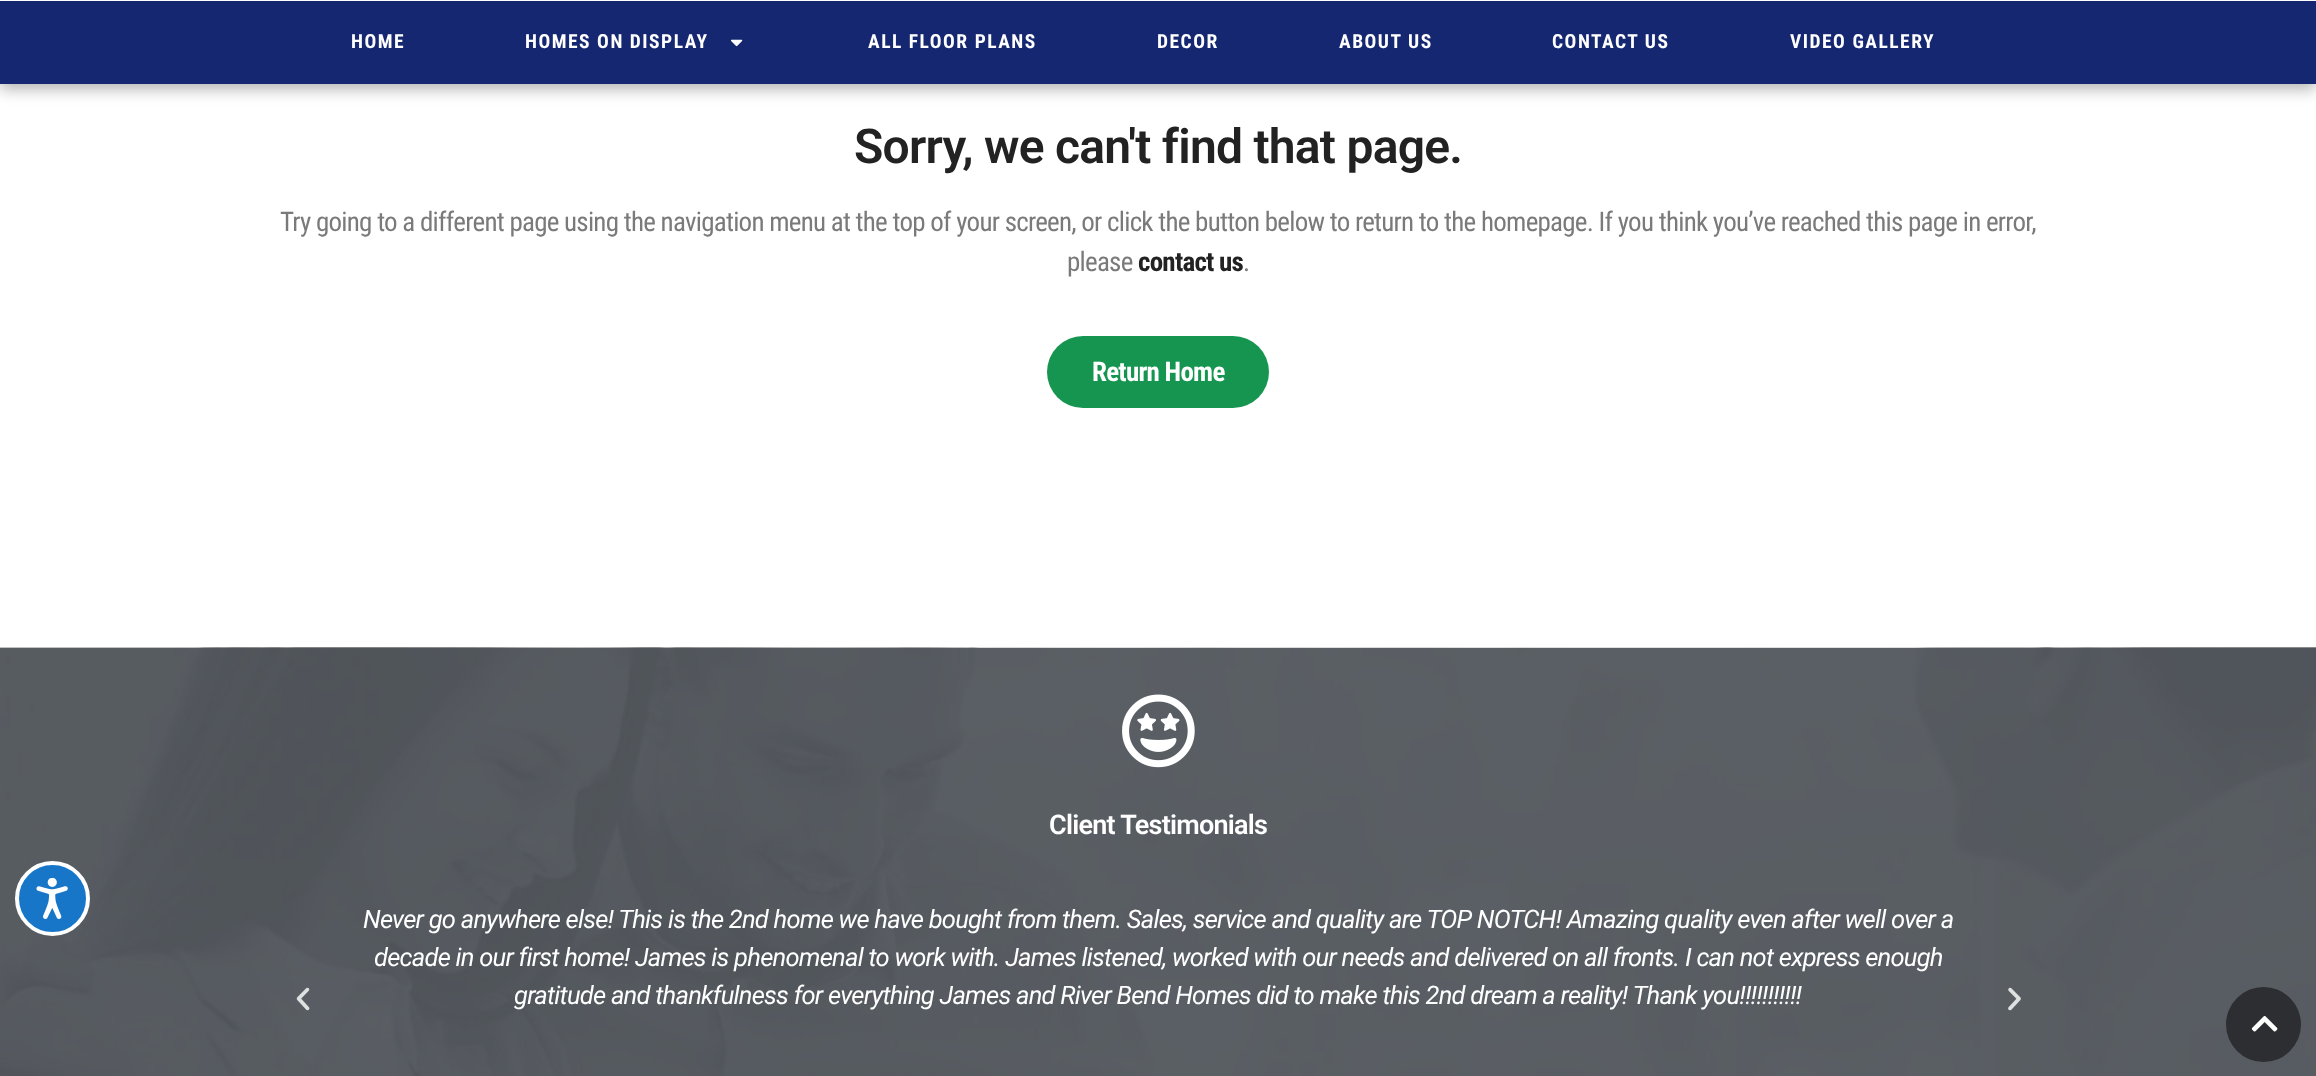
<svg xmlns="http://www.w3.org/2000/svg" width="2316" height="1076">
<style>
.a{font:bold 19.5px Roboto Condensed;letter-spacing:1.5px;fill:#fff}
.b{font:600 48px Roboto;letter-spacing:-0.75px;fill:#222}
.c{font:27px Roboto Condensed;letter-spacing:-0.75px;fill:#7a7a7a}
.d{font:bold 27px Roboto Condensed;letter-spacing:-0.75px;fill:#222}
.e{font:bold 27px Roboto Condensed;letter-spacing:-0.75px;fill:#fff}
.f{font:600 27px Roboto;letter-spacing:-0.75px;fill:#fff}
.g{font:italic 25.5px Roboto;letter-spacing:-0.75px;fill:#fff}
</style>
<rect width="100%" height="100%" fill="#fff"/>
<path fill="#0000004d" filter="blur(7.5px)" d="M0 5h2316v84H0z"/>
<path fill="#fff" d="M0 0h2316v1H0z"/>
<path fill="#162771" d="M0 1h2316v83H0z"/>
<image href="1.png" x="731" y="39" width="12" height="8"/>
<rect fill="#159550" x="1047" y="336" width="222" height="72" rx="36"/>
<image href="3.png" x="0" y="647" width="2316" height="429"/>
<circle fill="#1876c9" stroke="#fff" stroke-width="4" cx="52.5" cy="898.5" r="35.5"/>
<image href="2.png" x="36" y="878" width="32" height="41"/>
<image href="4.png" x="1122" y="694" width="73" height="74"/>
<image href="5.png" x="296" y="987" width="14" height="24"/>
<image href="6.png" x="2008" y="987" width="13" height="24"/>
<circle fill="#2c2e31" cx="2263.5" cy="1024.5" r="37.5"/>
<image href="7.png" x="2251" y="1016" width="27" height="16"/>
<text class="a" x="351" y="48">HOME</text>
<text class="a" x="525" y="48">HOMES ON DISPLAY</text>
<text class="a" x="868" y="48">ALL FLOOR PLANS</text>
<text class="a" x="1157" y="48">DECOR</text>
<text class="a" x="1339" y="48">ABOUT US</text>
<text class="a" x="1552" y="48">CONTACT US</text>
<text class="a" x="1790" y="48">VIDEO GALLERY</text>
<text class="b" x="854" y="163">Sorry, we can't find that page.</text>
<text class="c" x="280" y="231">Try going to a different page using the navigation menu at the top of your screen, or click the button below to return to the homepage. If you think you’ve reached this page in error,</text>
<text class="c" x="1067" y="271">please</text>
<text class="d" x="1138" y="271">contact us</text>
<text class="c" x="1243" y="271">.</text>
<text class="e" x="1092" y="381">Return Home</text>
<text class="f" x="1049" y="834">Client Testimonials</text>
<text class="g" x="363" y="928">Never go anywhere else! This is the 2nd home we have bought from them. Sales, service and quality are TOP NOTCH! Amazing quality even after well over a</text>
<text class="g" x="374" y="966">decade in our first home! James is phenomenal to work with. James listened, worked with our needs and delivered on all fronts. I can not express enough</text>
<text class="g" x="514" y="1004">gratitude and thankfulness for everything James and River Bend Homes did to make this 2nd dream a reality! Thank you!!!!!!!!!!!</text>
</svg>
